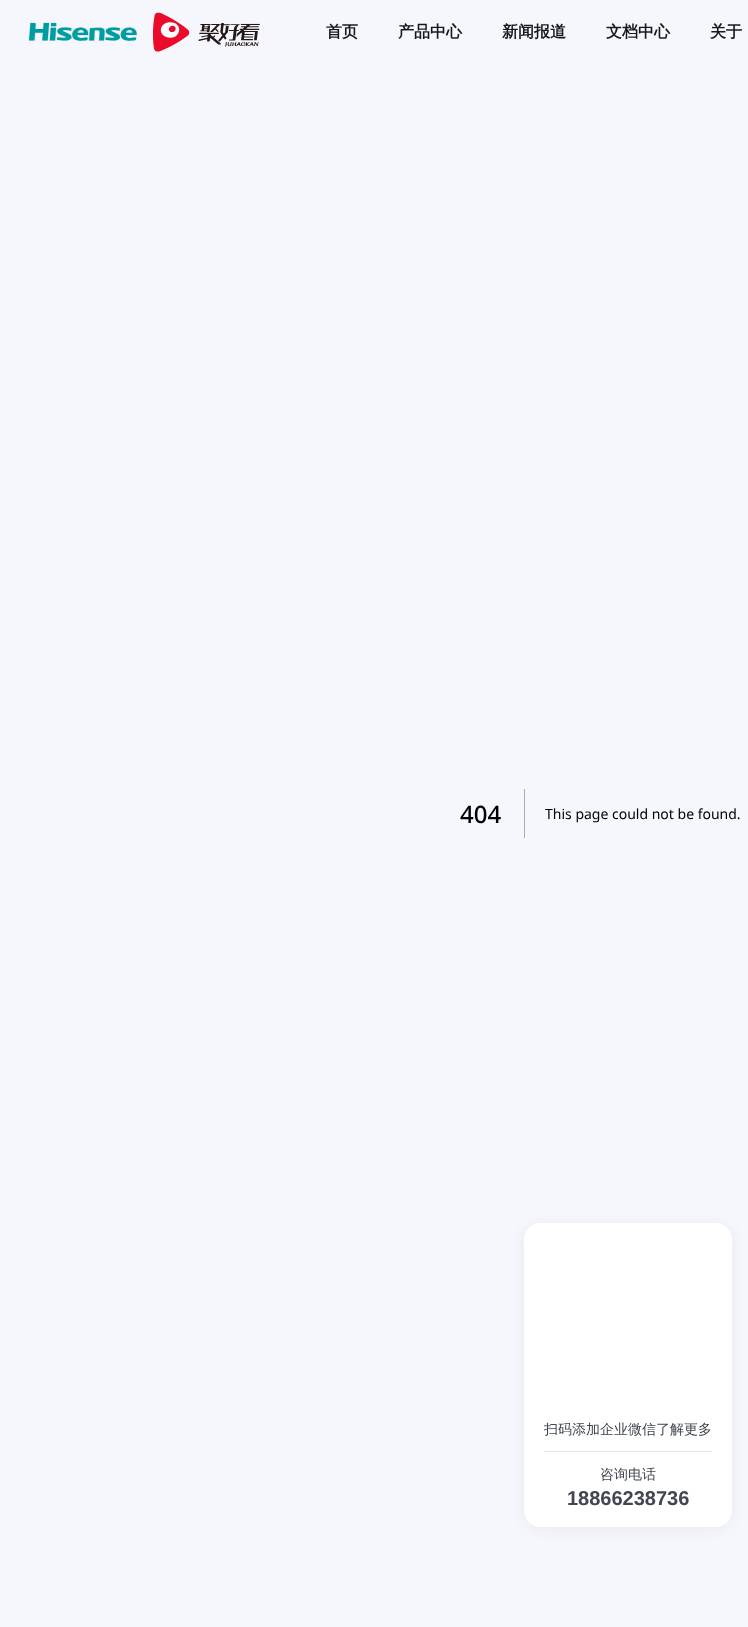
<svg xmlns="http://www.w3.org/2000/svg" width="748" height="1627">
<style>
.a{font:bold 16px WenQuanYi Zen Hei;fill:#16181a}
.b{font:500 24px Noto Sans;fill:#000}
.c{font:14px Noto Sans;fill:#000}
.d{font:500 14px WenQuanYi Zen Hei;fill:#414650}
.e{font:bold 20px Liberation Sans;fill:#414650}
</style>
<rect width="100%" height="100%" fill="#f5f7fd"/>
<image href="1.png" x="28" y="12" width="232" height="40"/>
<path fill="#acadb1" d="M524 789h1v49H524z"/>
<rect fill="#0000000d" filter="blur(8px)" x="524" y="1225" width="208" height="304" rx="16"/>
<rect fill="#fff" x="524" y="1223" width="208" height="304" rx="16"/>
<path fill="#e6e6e6" d="M544 1451h168v1H544z"/>
<text class="a" x="326" y="37">首页</text>
<text class="a" x="398" y="37">产品中心</text>
<text class="a" x="502" y="37">新闻报道</text>
<text class="a" x="606" y="37">文档中心</text>
<text class="a" x="710" y="37">关于</text>
<text class="b" x="460" y="823">404</text>
<text class="c" x="545" y="819">This page could not be found.</text>
<text class="d" x="544" y="1434">扫码添加企业微信了解更多</text>
<text class="d" x="600" y="1479">咨询电话</text>
<text class="e" x="567" y="1505">18866238736</text>
</svg>
